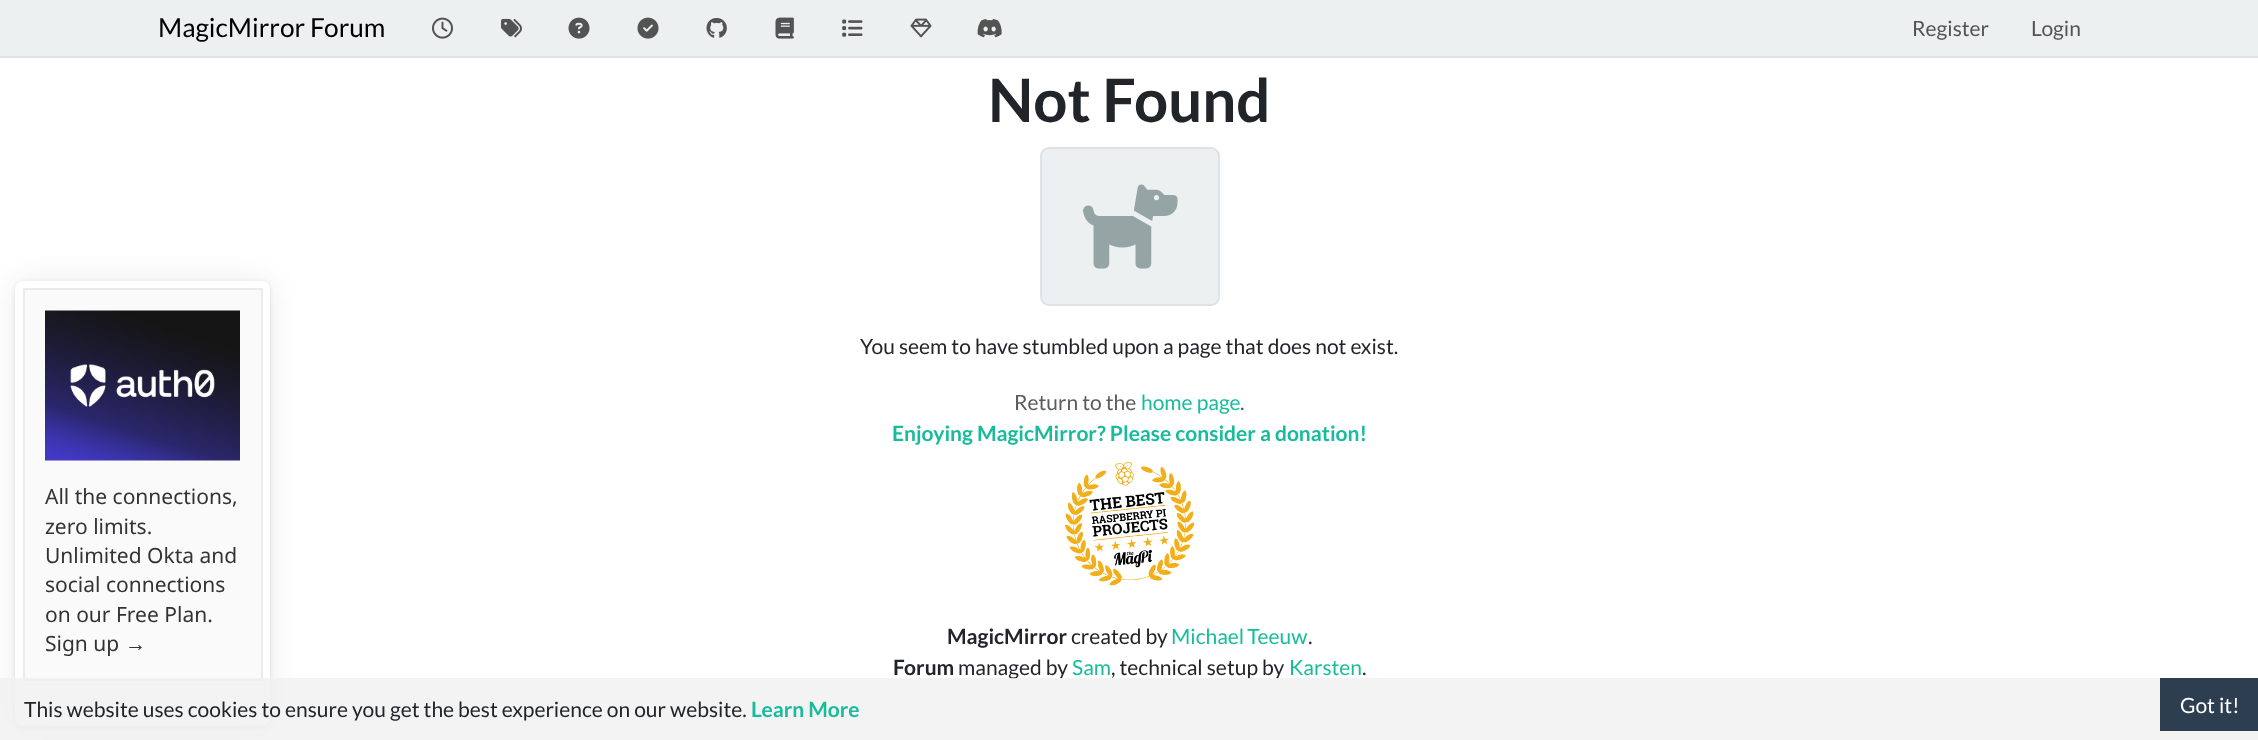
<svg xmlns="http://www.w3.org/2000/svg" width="2258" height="740">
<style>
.a{font:26.25px Lato;fill:#000}
.b{font:21px Lato;fill:#535454}
.c{font:bold 60px Lato;fill:#212529}
.d{font:21px Lato;fill:#212529}
.e{font:21px Lato;fill:#595c5f}
.f{font:21px Lato;fill:#18bc9c}
.g{font:bold 21px Lato;fill:#18bc9c}
.h{font:21px Noto Sans;fill:#333}
.i{font:21px Liberation Sans;fill:#333}
.j{font:bold 21px Lato;fill:#212529}
.k{font:21px Lato;fill:#fff}
</style>
<rect width="100%" height="100%" fill="#fff"/>
<path fill="#ecf0f1" d="M0 0h2258v56H0z"/>
<path fill="#dee2e6" d="M0 56h2258v2H0z"/>
<image href="1.png" x="432" y="17" width="21" height="22"/>
<image href="2.png" x="501" y="18" width="21" height="20"/>
<image href="3.png" x="568" y="17" width="22" height="22"/>
<image href="4.png" x="637" y="17" width="22" height="22"/>
<image href="5.png" x="706" y="18" width="21" height="20"/>
<image href="6.png" x="775" y="17" width="19" height="22"/>
<image href="7.png" x="842" y="19" width="21" height="18"/>
<image href="8.png" x="910" y="18" width="22" height="20"/>
<image href="9.png" x="977" y="19" width="25" height="19"/>
<rect fill="#ecf0f1" stroke="#dee2e6" stroke-width="2" x="1041" y="148" width="178" height="157" rx="8"/>
<image href="10.png" x="1083" y="184" width="95" height="85"/>
<rect fill="#00000014" filter="blur(15px)" x="15" y="281" width="255" height="445" rx="8"/>
<rect fill="#0000001a" filter="blur(2px)" x="15" y="282" width="255" height="446" rx="8"/>
<rect fill="#fff" x="15" y="281" width="255" height="445" rx="8"/>
<path fill="#fafafa" stroke="#ebebeb" stroke-width="2" d="M24 289h238v391H24z"/>
<image href="11.png" x="45" y="310" width="195" height="151"/>
<image href="12.png" x="1065" y="462" width="130" height="124"/>
<text class="a" x="158" y="37">MagicMirror Forum</text>
<text class="b" x="1912" y="36">Register</text>
<text class="b" x="2031" y="36">Login</text>
<text class="c" x="988" y="122">Not Found</text>
<text class="d" x="860" y="354">You seem to have stumbled upon a page that does not exist.</text>
<text class="e" x="1014" y="410">Return to the</text>
<text class="f" x="1141" y="410">home page</text>
<text class="e" x="1240" y="410">.</text>
<text class="g" x="892" y="441">Enjoying MagicMirror? Please consider a donation!</text>
<text class="h" x="45" y="504">All the connections,</text>
<text class="h" x="45" y="534">zero limits.</text>
<text class="h" x="45" y="563">Unlimited Okta and</text>
<text class="h" x="45" y="592">social connections</text>
<text class="h" x="45" y="622">on our Free Plan.</text>
<text class="h" x="45" y="651">Sign up</text>
<text class="i" x="125" y="651">→</text>
<text class="j" x="947" y="644">MagicMirror</text>
<text class="d" x="1071" y="644">created by</text>
<text class="f" x="1171" y="644" word-spacing="-1">Michael Teeuw</text>
<text class="d" x="1308" y="644">.</text>
<text class="j" x="893" y="675">Forum</text>
<text class="d" x="958" y="675">managed by</text>
<text class="f" x="1072" y="675">Sam</text>
<text class="d" x="1111" y="675">, technical setup by</text>
<text class="f" x="1289" y="675">Karsten</text>
<text class="d" x="1362" y="675">.</text>
<path fill="#f0f0f0cc" d="M0 678h2258v62H0z"/>
<text class="d" x="24" y="717">This website uses cookies to ensure you get the best experience on our website.</text>
<text class="g" x="751" y="717">Learn More</text>
<path fill="#2c3e50" d="M2160 678h98v53H2160z"/>
<text class="k" x="2180" y="713">Got it!</text>
</svg>
